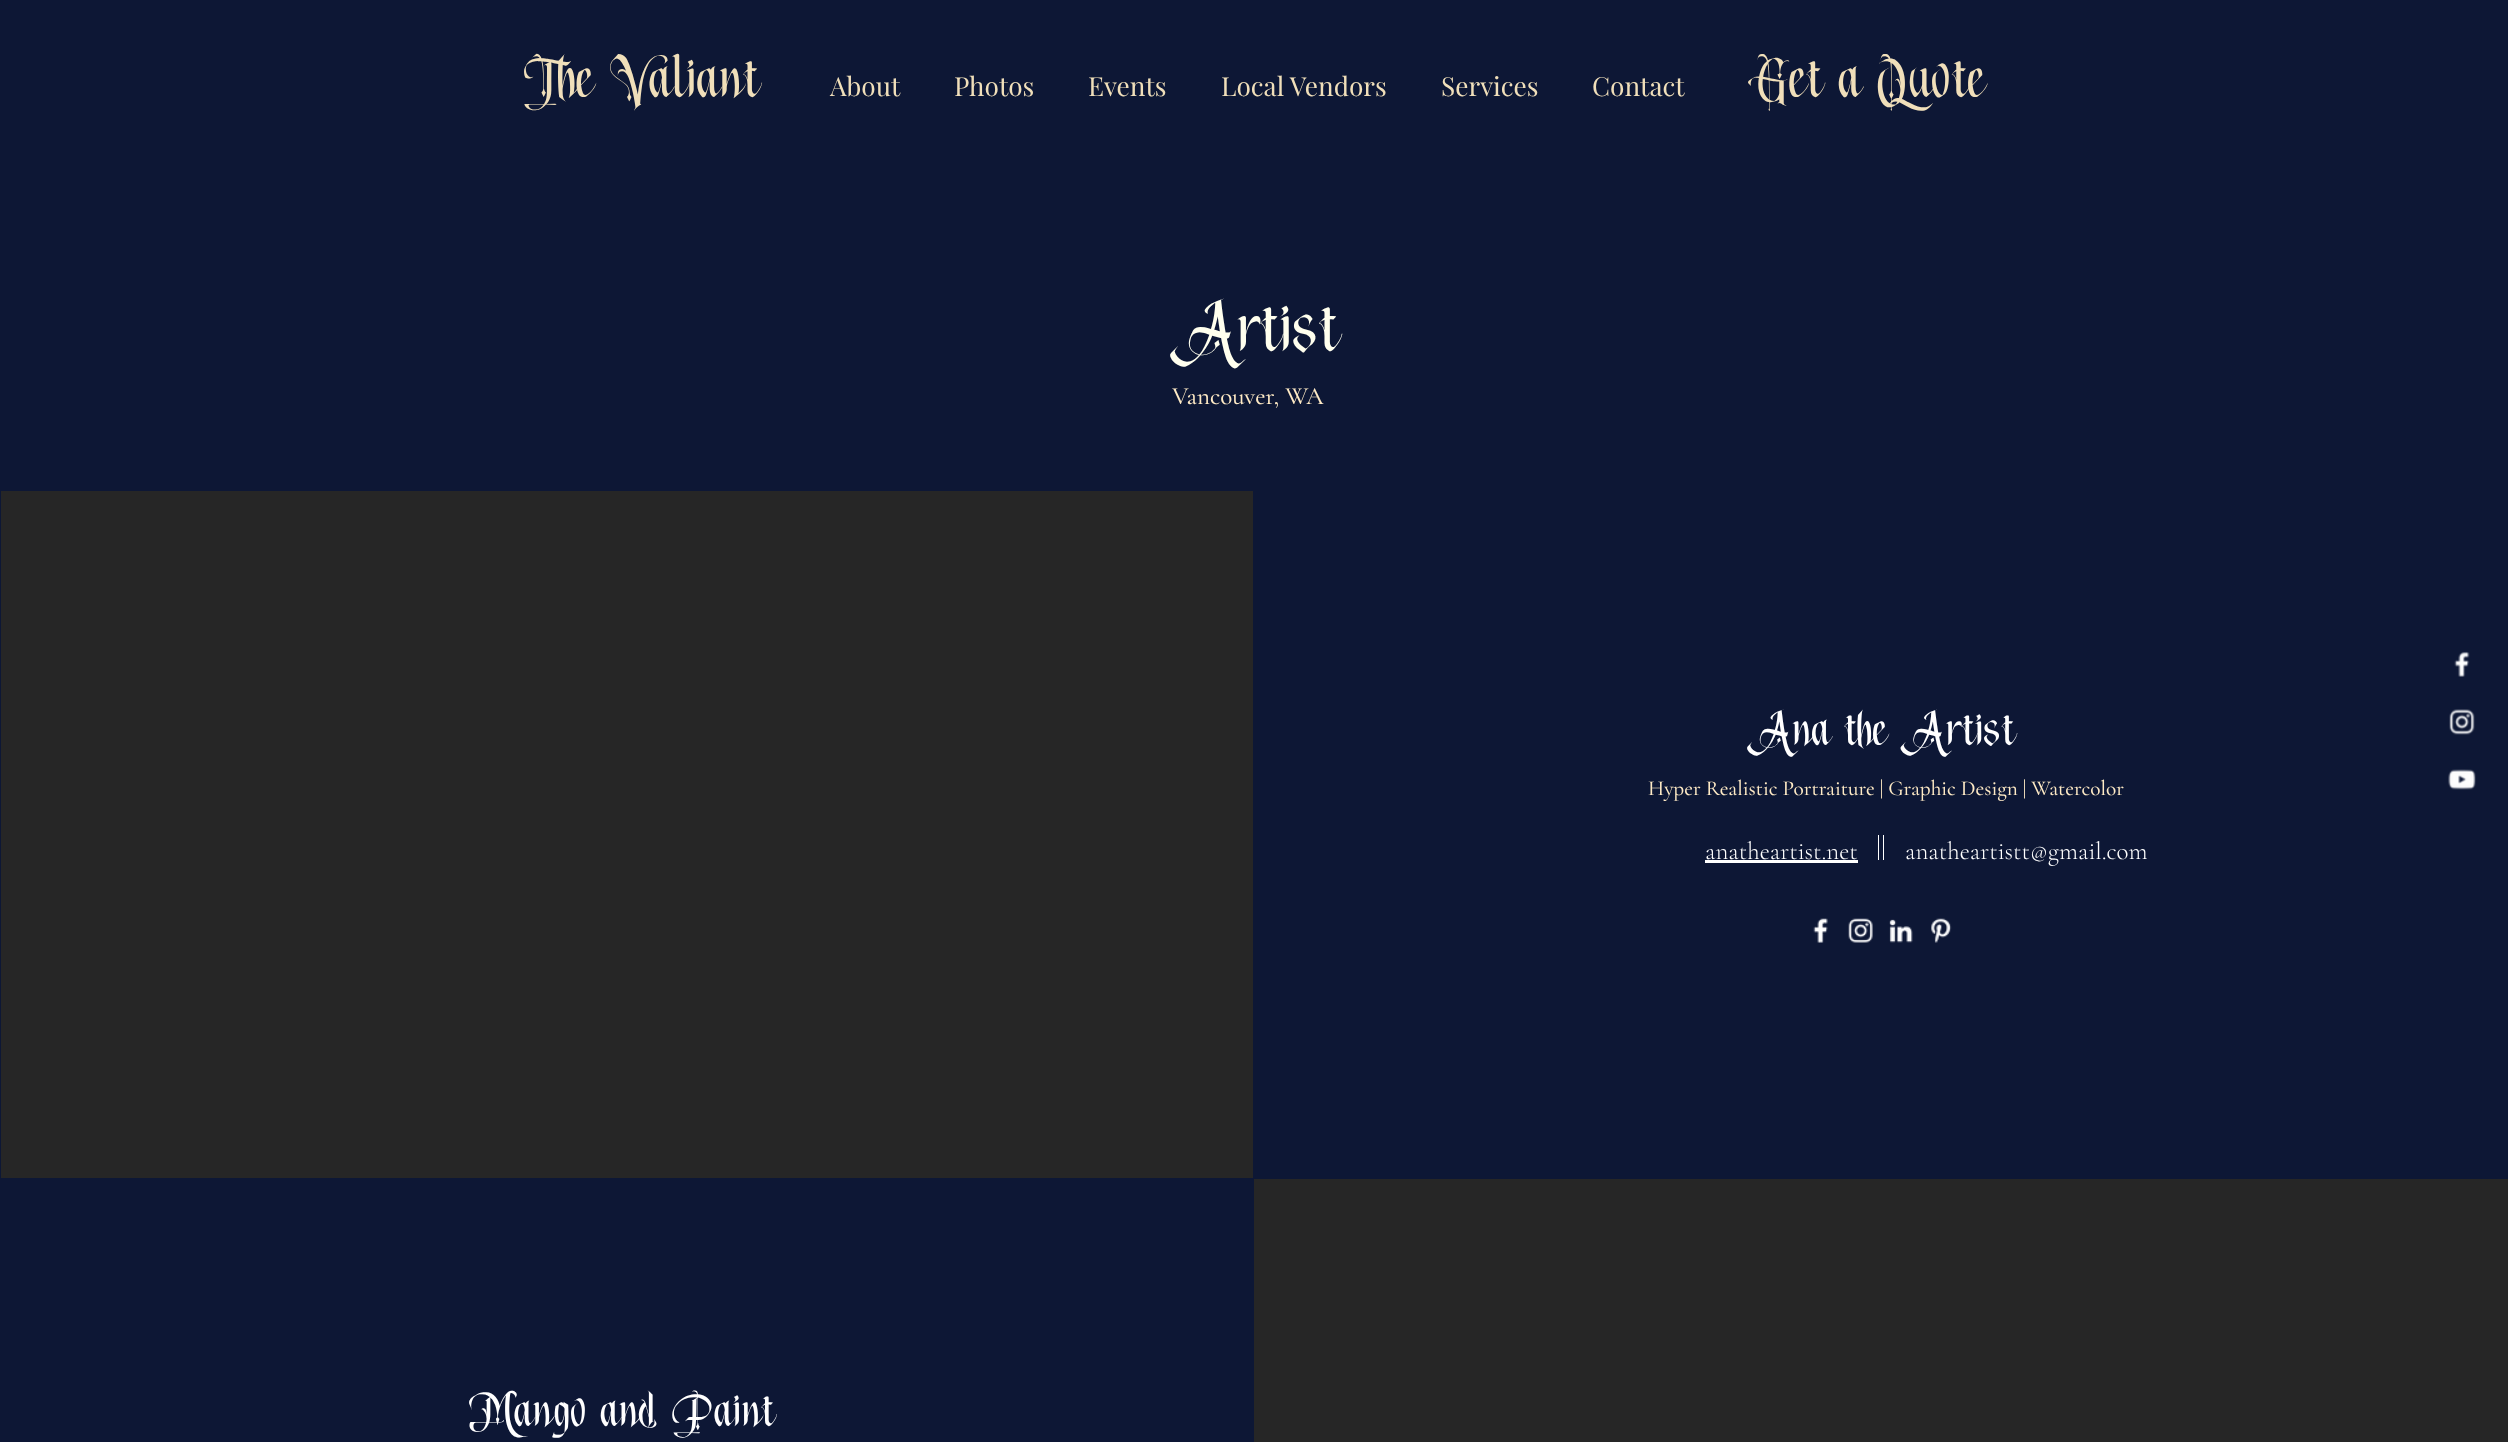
<svg xmlns="http://www.w3.org/2000/svg" width="2508" height="1442">
<style>
.a{font:57.5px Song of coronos;fill:#f0dfba}
.b{font:26.25px Playfair Display;fill:#f0dfba}
.c{font:70px Song of coronos;fill:#ffe}
.d{font:500 25px Cormorant Garamond;fill:#ffebc6}
.e{font:47.5px Song of coronos;fill:#fff}
.f{font:500 21.25px Cormorant Garamond;fill:#ffebc6}
.g{font:300 25px Cormorant Garamond;fill:#fff}
</style>
<rect width="100%" height="100%" fill="#0d1735"/>
<path fill="#262626" d="M1 491h1252v687H1z"/>
<path fill="#fff" d="M1705 860h153v3H1705z"/>
<path fill="#fff" d="M1883 835h1v25H1883z"/>
<path fill="#fff" d="M1878 835h1v25H1878z"/>
<image href="1.png" x="1813" y="918" width="15" height="25"/>
<image href="2.png" x="1848" y="918" width="25" height="25"/>
<image href="3.png" x="1889" y="919" width="24" height="24"/>
<image href="4.png" x="1931" y="918" width="21" height="25"/>
<path fill="#262626" d="M1254 1179h1254v263H1254z"/>
<image href="5.png" x="2454" y="651" width="16" height="26"/>
<image href="6.png" x="2449" y="709" width="26" height="26"/>
<image href="7.png" x="2448" y="769" width="28" height="21"/>
<text class="a" x="524" y="97">The Valiant</text>
<text class="b" x="830" y="96">About</text>
<text class="b" x="954" y="96">Photos</text>
<text class="b" x="1088" y="96">Events</text>
<text class="b" x="1221" y="96">Local Vendors</text>
<text class="b" x="1441" y="96">Services</text>
<text class="b" x="1592" y="96">Contact</text>
<text class="a" x="1748" y="97">Get a Quote</text>
<text class="c" x="1170" y="351">Artist</text>
<text class="d" x="1172" y="404">Vancouver, WA</text>
<text class="e" x="1747" y="745">Ana the Artist</text>
<text class="f" x="1648" y="795">Hyper Realistic Portraiture | Graphic Design | Watercolor</text>
<text class="g" x="1705" y="859">anatheartist.net</text>
<text class="g" x="1905" y="859">anatheartistt@gmail.com</text>
<text class="e" x="469" y="1426">Mango and Paint</text>
</svg>
